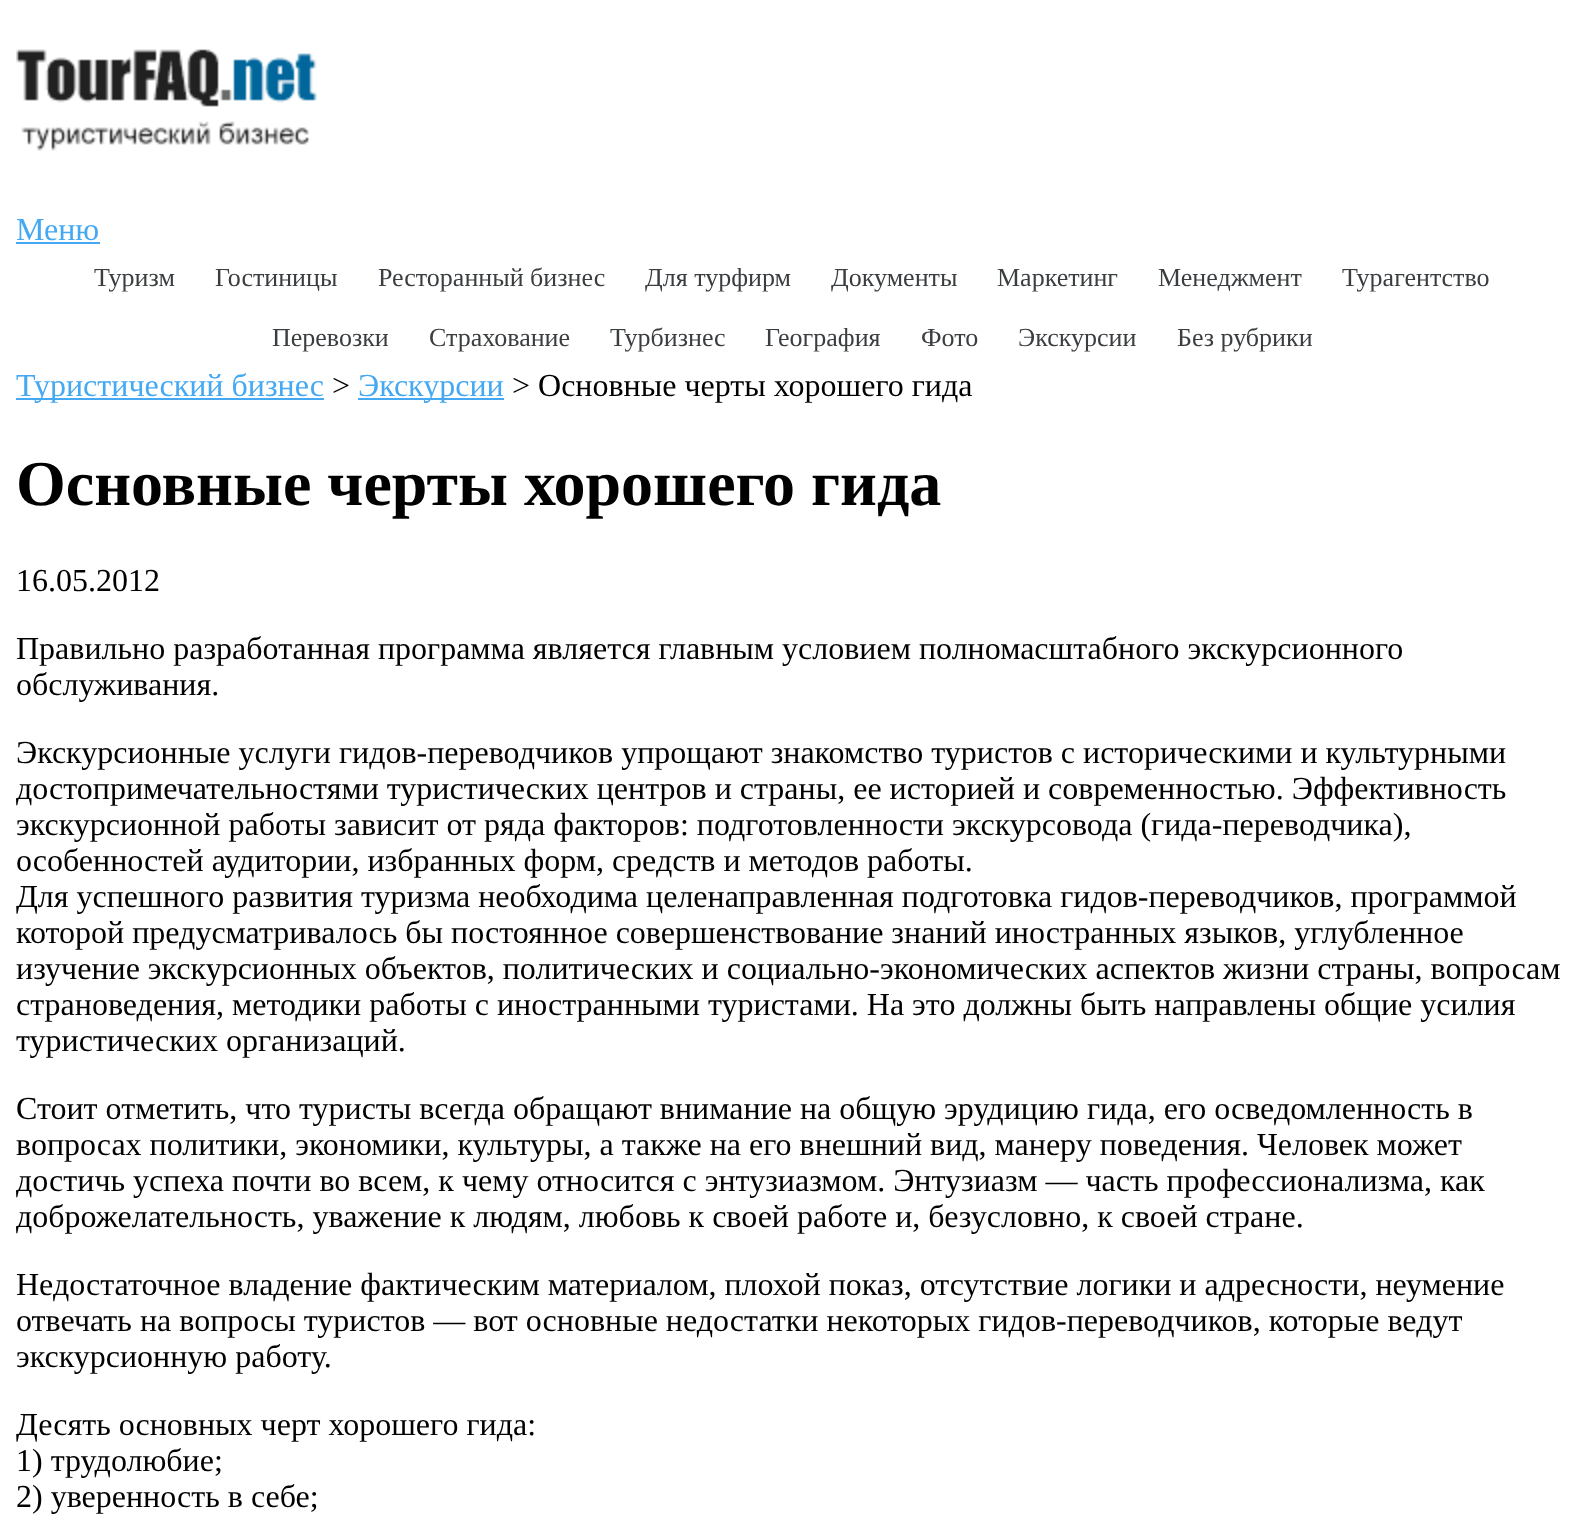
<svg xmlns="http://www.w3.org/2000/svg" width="1583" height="1535">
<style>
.a{font:32px Liberation Serif;fill:#44a8f2}
.b{font:26px Liberation Serif;fill:#3b3e40}
.c{font:32px Liberation Serif;fill:#000}
.d{font:bold 64px Liberation Serif;fill:#000}
</style>
<rect width="100%" height="100%" fill="#fff"/>
<image href="1.png" x="16" y="49" width="301" height="102"/>
<path fill="#44a8f2" d="M16 242h84v2H16z"/>
<path fill="#44a8f2" d="M16 398h308v2H16z"/>
<path fill="#44a8f2" d="M358 398h146v2H358z"/>
<text class="a" x="16" y="240">Меню</text>
<text class="b" x="94" y="286">Туризм</text>
<text class="b" x="215" y="286">Гостиницы</text>
<text class="b" x="378" y="286">Ресторанный бизнес</text>
<text class="b" x="645" y="286">Для турфирм</text>
<text class="b" x="831" y="286">Документы</text>
<text class="b" x="997" y="286">Маркетинг</text>
<text class="b" x="1158" y="286">Менеджмент</text>
<text class="b" x="1342" y="286">Турагентство</text>
<text class="b" x="272" y="346">Перевозки</text>
<text class="b" x="429" y="346">Страхование</text>
<text class="b" x="610" y="346">Турбизнес</text>
<text class="b" x="765" y="346">География</text>
<text class="b" x="921" y="346">Фото</text>
<text class="b" x="1018" y="346">Экскурсии</text>
<text class="b" x="1177" y="346">Без рубрики</text>
<text class="a" x="16" y="396">Туристический бизнес</text>
<text class="c" x="332" y="396">&gt;</text>
<text class="a" x="358" y="396">Экскурсии</text>
<text class="c" x="512" y="396">&gt; Основные черты хорошего гида</text>
<text class="d" x="16" y="505">Основные черты хорошего гида</text>
<text class="c" x="16" y="591">16.05.2012</text>
<text class="c" x="16" y="659">Правильно разработанная программа является главным условием полномасштабного экскурсионного</text>
<text class="c" x="16" y="695">обслуживания.</text>
<text class="c" x="16" y="763">Экскурсионные услуги гидов-переводчиков упрощают знакомство туристов с историческими и культурными</text>
<text class="c" x="16" y="799">достопримечательностями туристических центров и страны, ее историей и современностью. Эффективность</text>
<text class="c" x="16" y="835">экскурсионной работы зависит от ряда факторов: подготовленности экскурсовода (гида-переводчика),</text>
<text class="c" x="16" y="871">особенностей аудитории, избранных форм, средств и методов работы.</text>
<text class="c" x="16" y="907">Для успешного развития туризма необходима целенаправленная подготовка гидов-переводчиков, программой</text>
<text class="c" x="16" y="943">которой предусматривалось бы постоянное совершенствование знаний иностранных языков, углубленное</text>
<text class="c" x="16" y="979">изучение экскурсионных объектов, политических и социально-экономических аспектов жизни страны, вопросам</text>
<text class="c" x="16" y="1015">страноведения, методики работы с иностранными туристами. На это должны быть направлены общие усилия</text>
<text class="c" x="16" y="1051">туристических организаций.</text>
<text class="c" x="16" y="1119">Стоит отметить, что туристы всегда обращают внимание на общую эрудицию гида, его осведомленность в</text>
<text class="c" x="16" y="1155">вопросах политики, экономики, культуры, а также на его внешний вид, манеру поведения. Человек может</text>
<text class="c" x="16" y="1191">достичь успеха почти во всем, к чему относится с энтузиазмом. Энтузиазм — часть профессионализма, как</text>
<text class="c" x="16" y="1227">доброжелательность, уважение к людям, любовь к своей работе и, безусловно, к своей стране.</text>
<text class="c" x="16" y="1295">Недостаточное владение фактическим материалом, плохой показ, отсутствие логики и адресности, неумение</text>
<text class="c" x="16" y="1331">отвечать на вопросы туристов — вот основные недостатки некоторых гидов-переводчиков, которые ведут</text>
<text class="c" x="16" y="1367">экскурсионную работу.</text>
<text class="c" x="16" y="1435">Десять основных черт хорошего гида:</text>
<text class="c" x="16" y="1471">1) трудолюбие;</text>
<text class="c" x="16" y="1507">2) уверенность в себе;</text>
</svg>
